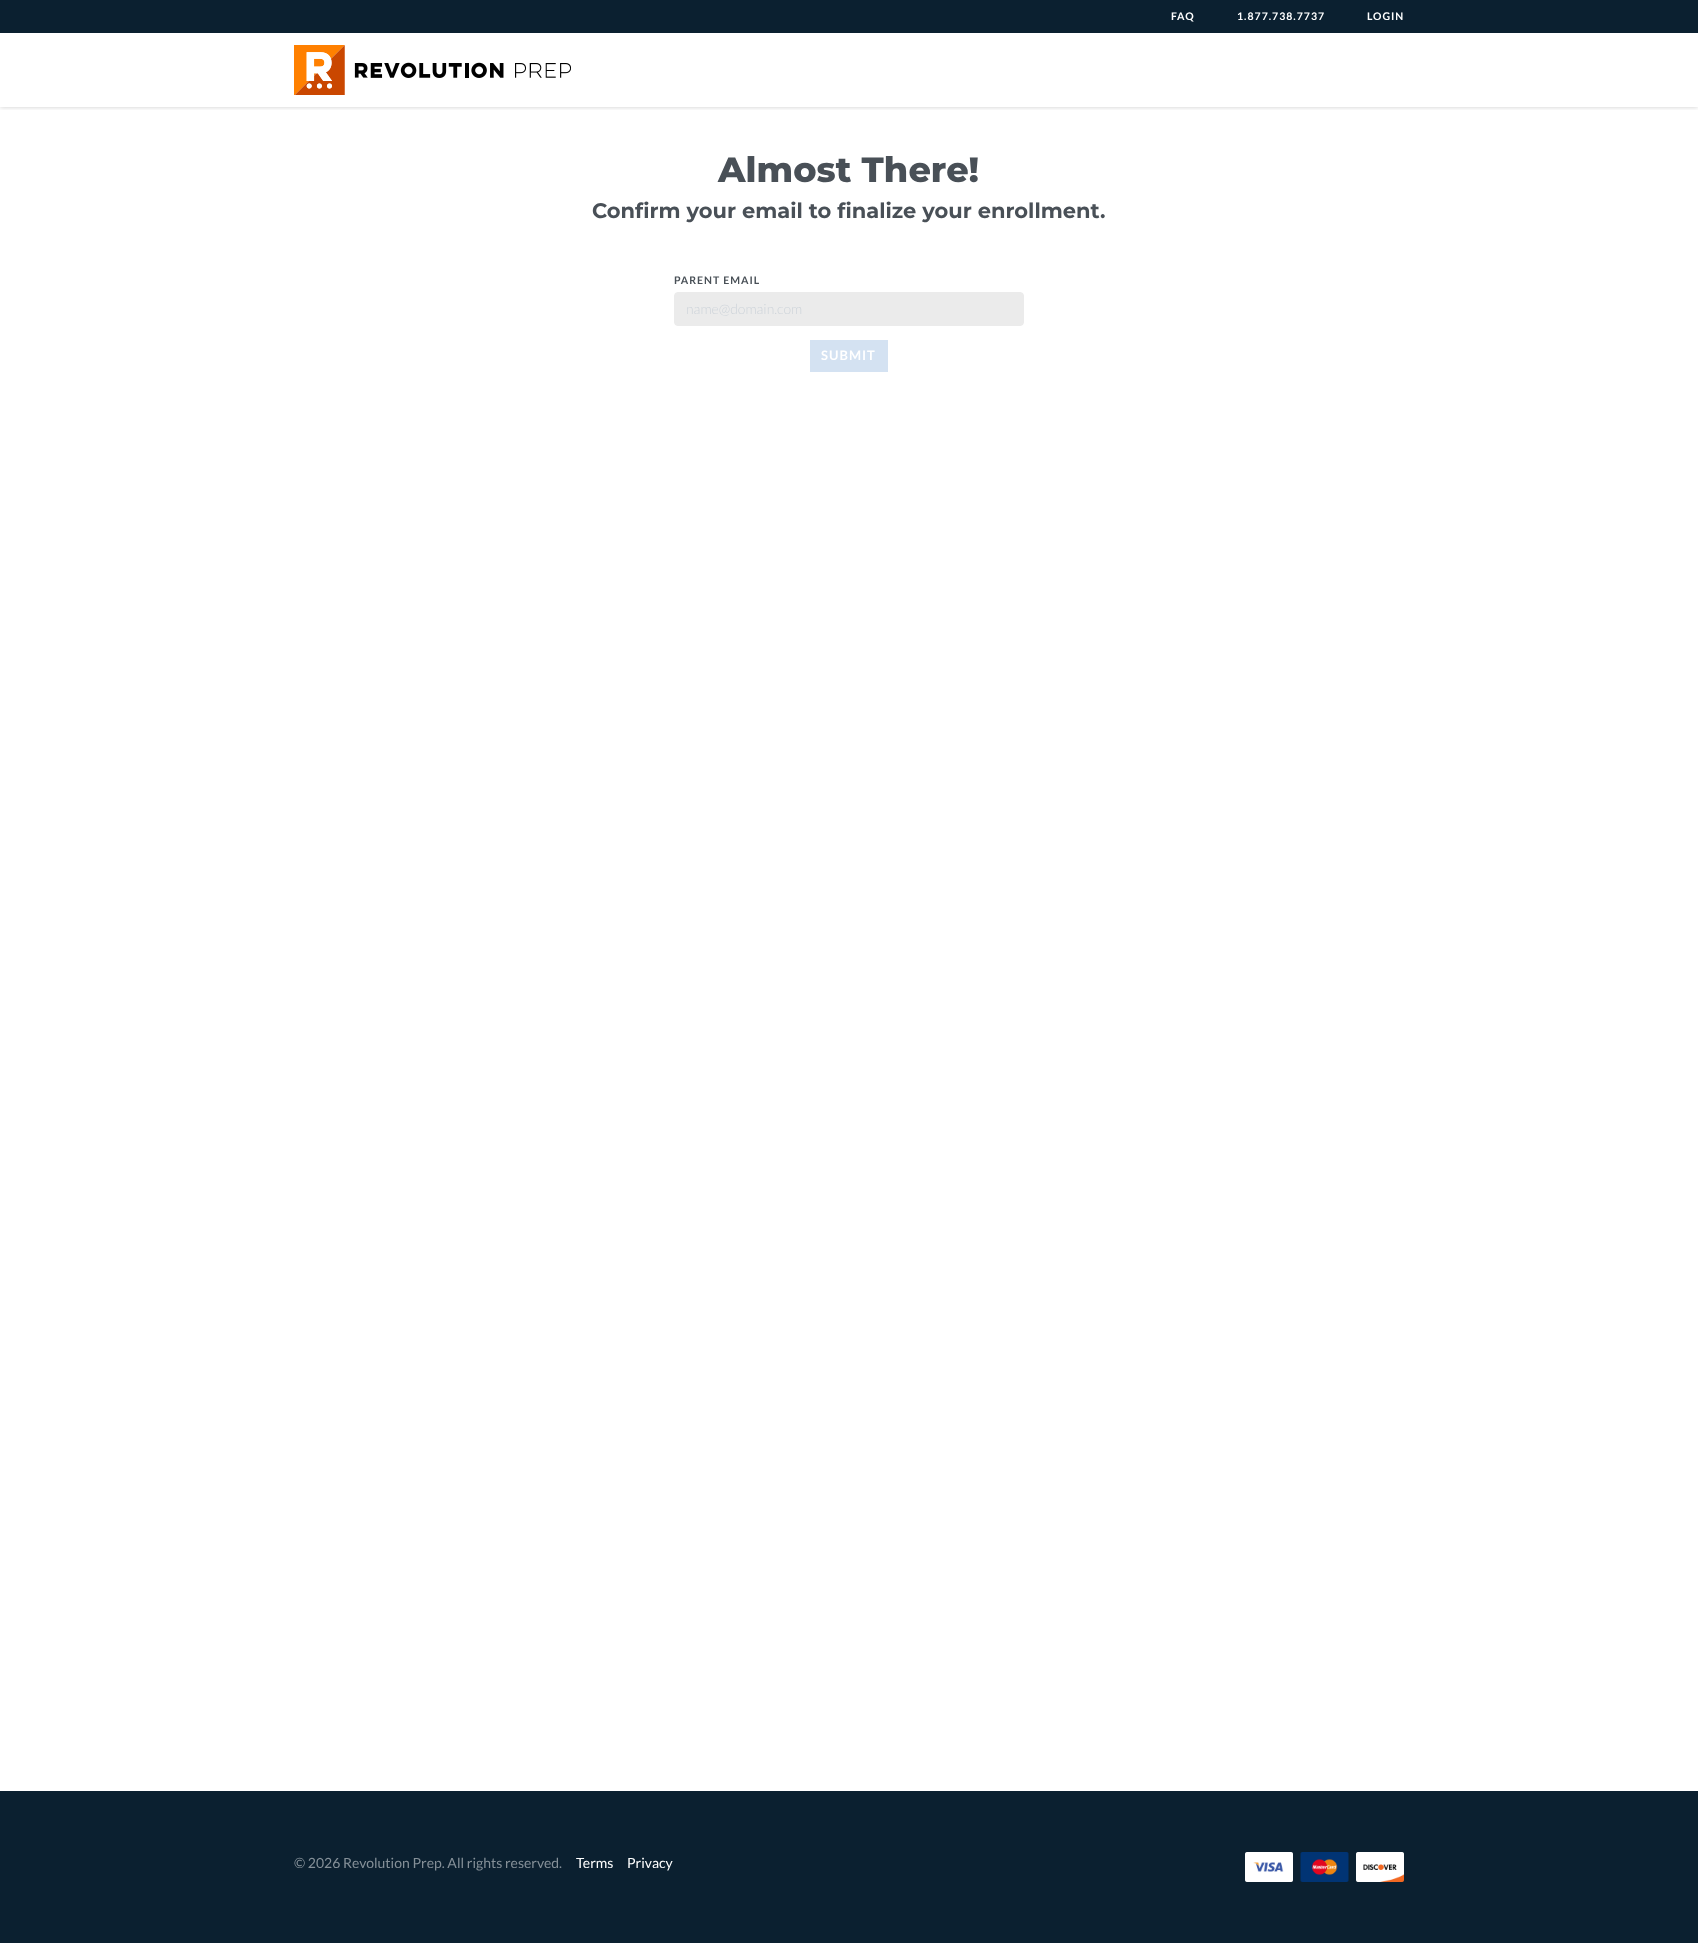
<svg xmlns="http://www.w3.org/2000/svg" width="1698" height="1943">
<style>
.a{font:bold 10.5px Lato;letter-spacing:1px;fill:#fff}
.b{font:800 35px Montserrat;fill:#495057}
.c{font:bold 21px Montserrat;fill:#495057}
.d{font:bold 10.5px Lato;letter-spacing:1px;fill:#495057}
.e{font:300 14px Lato;fill:#ced4da}
.f{font:bold 13px Lato;letter-spacing:1px;fill:#fff}
.g{font:14px Lato;fill:#859098}
.h{font:14px Lato;fill:#fff}
</style>
<defs>
<clipPath id="clip1"><path d="M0 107h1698v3H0z"/></clipPath>
</defs>
<rect width="100%" height="100%" fill="#fff"/>
<g clip-path="url(#clip1)">
<path fill="#00000033" filter="blur(2.5px)" d="M0 0h1698v107H0z"/>
</g>
<path fill="#0b2030" d="M0 0h1698v33H0z"/>
<image href="1.png" x="294" y="45" width="277" height="50"/>
<rect fill="#ebebeb" stroke="#ebebeb" x="674.5" y="292.5" width="349" height="33" rx="3.5"/>
<path fill="#d4e2f2" d="M810 340h78v32H810z"/>
<path fill="#0b2030" d="M0 1791h1698v152H0z"/>
<image href="2.png" x="1245" y="1852" width="159" height="30"/>
<text class="a" x="1171" y="20">FAQ</text>
<text class="a" x="1237" y="20">1.877.738.7737</text>
<text class="a" x="1367" y="20">LOGIN</text>
<text class="b" x="718" y="182">Almost There!</text>
<text class="c" x="592" y="218">Confirm your email to finalize your enrollment.</text>
<text class="d" x="674" y="284">PARENT EMAIL</text>
<text class="e" x="686" y="314">name@domain.com</text>
<text class="f" x="821" y="360">SUBMIT</text>
<text class="g" x="294" y="1868">© 2026 Revolution Prep. All rights reserved.</text>
<text class="h" x="576" y="1868">Terms</text>
<text class="h" x="627" y="1868">Privacy</text>
</svg>
